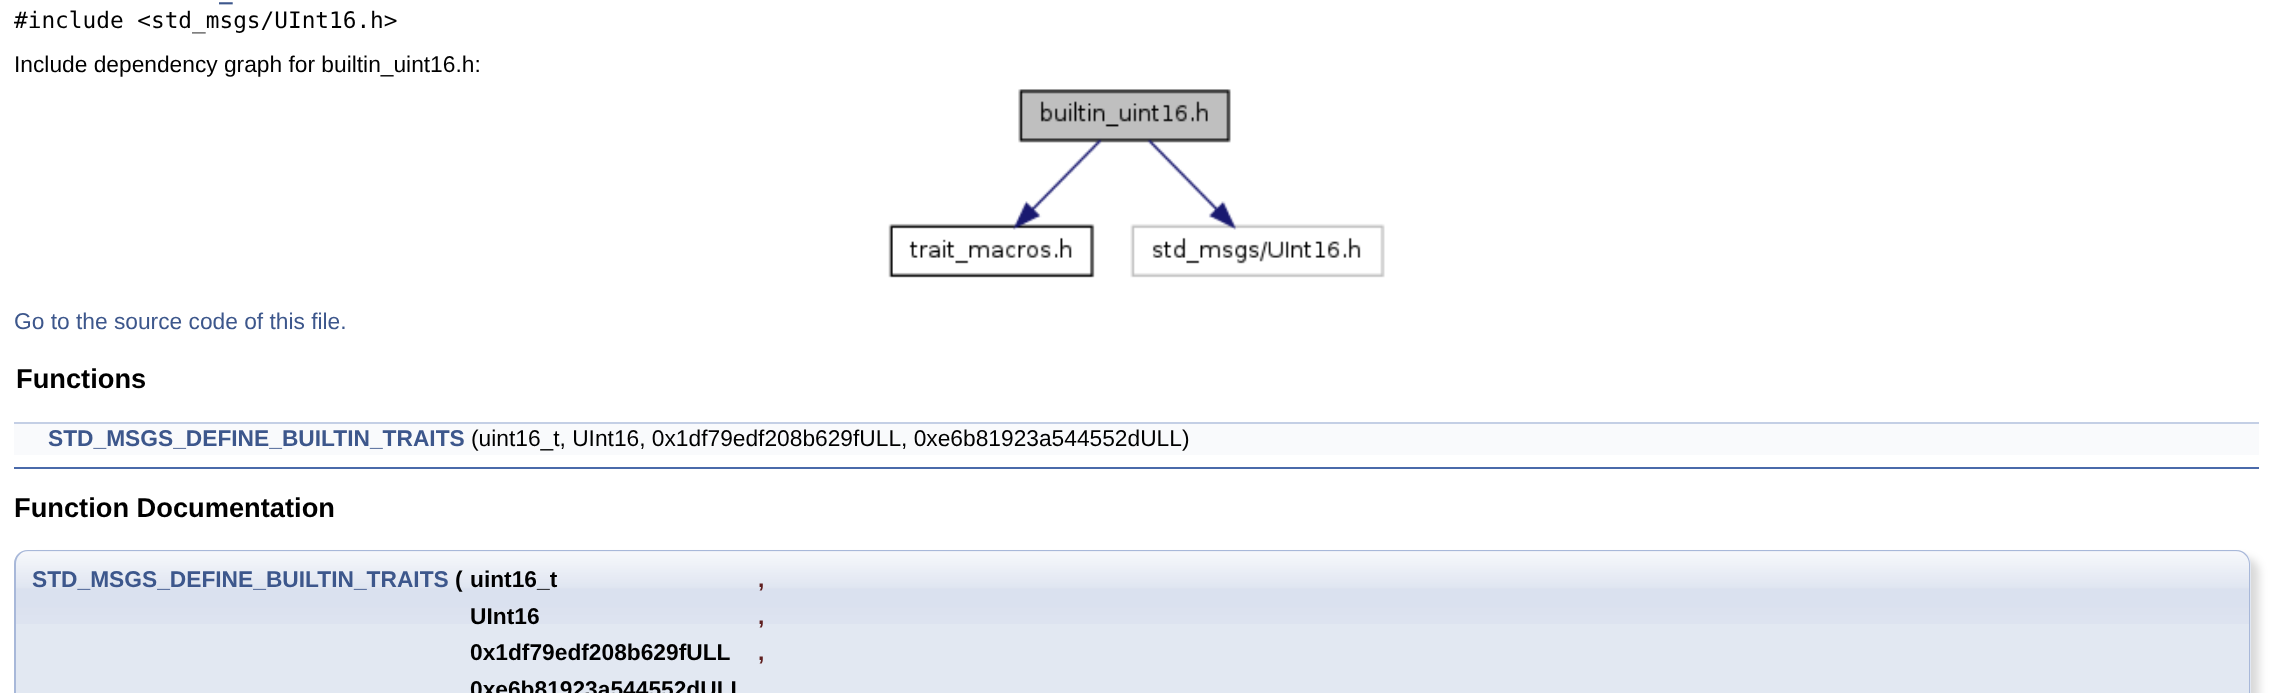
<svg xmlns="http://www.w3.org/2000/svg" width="2273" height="693">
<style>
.a{font:bold 22.75px DejaVu Sans Mono;fill:#3d578c}
.b{font:22.75px DejaVu Sans Mono;fill:#000}
.c{font:22.75px Liberation Sans;fill:#000}
.d{font:22.75px Liberation Sans;fill:#3d578c}
.e{font:bold 27.25px Liberation Sans;fill:#000}
.f{font:bold 22.75px Liberation Sans;fill:#3d578c}
.g{font:bold 22.75px Liberation Sans;fill:#000}
.h{font:bold 22.75px Liberation Sans;fill:#602020}
</style>
<rect width="100%" height="100%" fill="#fff"/>
<image href="1.png" x="888" y="89" width="497" height="189"/>
<path fill="#f9fafc" d="M14 424h2245v31H14z"/>
<path fill="#c4cfe5" d="M14 422h2245v2H14z"/>
<path fill="#4a6aaa" d="M14 467h2245v2H14z"/>
<rect fill="#00000026" filter="blur(4.5px)" x="23" y="558" width="2236" height="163" rx="14"/>
<path fill="#e2e8f2" d="M28 550h2209c7.5 0 14 6.5 14 14v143h-2237v-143c0-7.5 6.5-14 14-14z"/>
<image href="2.png" x="14" y="551" width="2236" height="73"/>
<path fill="#a8b8d9" fill-rule="evenodd" d="M28 550h2208c8 0 14 6 14 14v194h-2236v-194c0-8 6-14 14-14zm0 1h2208c7 0 13 6 13 13v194h-2233v-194c0-7 5-13 12-13z"/>
<text class="a" x="219" y="-1">_</text>
<text class="b" x="14" y="28">#include &lt;std_msgs/UInt16.h&gt;</text>
<text class="c" x="14" y="72">Include dependency graph for builtin_uint16.h:</text>
<text class="d" x="14" y="329">Go to the source code of this file.</text>
<text class="e" x="16" y="388">Functions</text>
<text class="f" x="48" y="446">STD_MSGS_DEFINE_BUILTIN_TRAITS</text>
<text class="c" x="471" y="446">(uint16_t, UInt16, 0x1df79edf208b629fULL, 0xe6b81923a544552dULL)</text>
<text class="e" x="14" y="517">Function Documentation</text>
<text class="f" x="32" y="587">STD_MSGS_DEFINE_BUILTIN_TRAITS</text>
<text class="g" x="455" y="587">(</text>
<text class="g" x="470" y="587">uint16_t</text>
<text class="h" x="758" y="587">,</text>
<text class="g" x="470" y="624">UInt16</text>
<text class="h" x="758" y="624">,</text>
<text class="g" x="470" y="660">0x1df79edf208b629fULL</text>
<text class="h" x="758" y="660">,</text>
<text class="g" x="470" y="697">0xe6b81923a544552dULL</text>
</svg>
